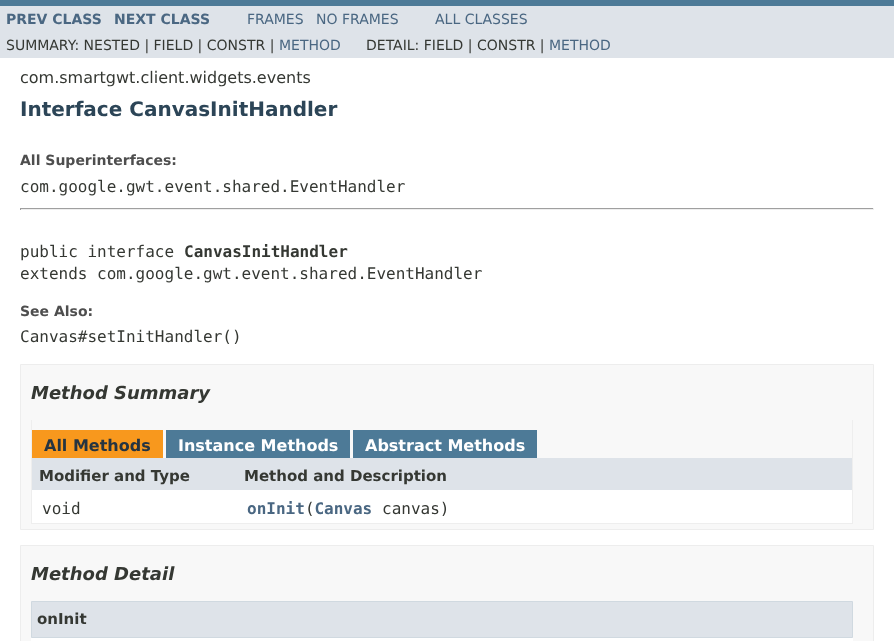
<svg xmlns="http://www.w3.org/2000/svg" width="894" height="641">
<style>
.a{font:bold 14px DejaVu Sans;fill:#4a6782}
.b{font:14px DejaVu Sans;fill:#4a6782}
.c{font:14px DejaVu Sans;fill:#353833}
.d{font:16px DejaVu Sans;fill:#353833}
.e{font:bold 20px DejaVu Sans;fill:#2c4557}
.f{font:bold 14px DejaVu Sans;fill:#4e4e4e}
.g{font:16px DejaVu Sans Mono;fill:#353833}
.h{font:bold 16px DejaVu Sans Mono;fill:#353833}
.i{font:italic bold 18px DejaVu Sans;fill:#353833}
.j{font:bold 16px DejaVu Sans;fill:#253441}
.k{font:bold 16px DejaVu Sans;fill:#fff}
.l{font:bold 15px DejaVu Sans;fill:#353833}
.m{font:bold 16px DejaVu Sans Mono;fill:#4a6782}
</style>
<rect width="100%" height="100%" fill="#fff"/>
<path fill="#4d7a97" d="M0 0h894v6H0z"/>
<path fill="#dee3e9" d="M0 6h894v52H0z"/>
<path fill="#9f9f9f" d="M20 208h854v1H20z"/>
<path fill="#eee" d="M873 208h1v2H873z"/>
<path fill="#eee" d="M20 209h854v1H20z"/>
<path fill="#9f9f9f" d="M20 208h1v2H20z"/>
<path fill="#f8f8f8" stroke="#ededed" d="M20.5 364.5h853v165H20.5z"/>
<path fill="#eee" d="M852 420h1v104H852z"/>
<path fill="#eee" d="M31 523h822v1H31z"/>
<path fill="#eee" d="M31 420h1v104H31z"/>
<path fill="#f8981d" d="M32 430h131v28H32z"/>
<path fill="#4d7a97" d="M166 430h184v28H166z"/>
<path fill="#4d7a97" d="M353 430h184v28H353z"/>
<path fill="#dee3e9" d="M32 458h820v32H32z"/>
<path fill="#fff" d="M32 490h820v33H32z"/>
<path fill="#f8f8f8" stroke="#ededed" d="M20.5 545.5h853v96H20.5z"/>
<path fill="#fff" d="M31 638h822v3H31z"/>
<path fill="#dee3e9" stroke="#d0d9e0" d="M31.5 601.5h821v36H31.5z"/>
<text class="a" x="6" y="24">PREV CLASS</text>
<text class="a" x="114" y="24">NEXT CLASS</text>
<text class="b" x="247" y="24">FRAMES</text>
<text class="b" x="316" y="24">NO FRAMES</text>
<text class="b" x="435" y="24">ALL CLASSES</text>
<text class="c" x="6" y="50">SUMMARY: NESTED | FIELD | CONSTR |</text>
<text class="b" x="279" y="50">METHOD</text>
<text class="c" x="366" y="50">DETAIL: FIELD | CONSTR |</text>
<text class="b" x="549" y="50">METHOD</text>
<text class="d" x="20" y="83">com.smartgwt.client.widgets.events</text>
<text class="e" x="20" y="116">Interface CanvasInitHandler</text>
<text class="f" x="20" y="165">All Superinterfaces:</text>
<text class="g" x="20" y="192">com.google.gwt.event.shared.EventHandler</text>
<text class="g" x="20" y="257">public interface</text>
<text class="h" x="184" y="257">CanvasInitHandler</text>
<text class="g" x="20" y="279">extends com.google.gwt.event.shared.EventHandler</text>
<text class="f" x="20" y="316">See Also:</text>
<text class="g" x="20" y="342">Canvas#setInitHandler()</text>
<text class="i" x="31" y="399">Method Summary</text>
<text class="j" x="44" y="451">All Methods</text>
<text class="k" x="178" y="451">Instance Methods</text>
<text class="k" x="365" y="451">Abstract Methods</text>
<text class="l" x="39" y="481">Modifier and Type</text>
<text class="l" x="244" y="481">Method and Description</text>
<text class="g" x="42" y="514">void</text>
<text class="m" x="247" y="514">onInit Canvas</text>
<text class="g" x="305" y="514">(</text>
<text class="g" x="382" y="514">canvas)</text>
<text class="i" x="31" y="580">Method Detail</text>
<text class="l" x="37" y="624">onInit</text>
</svg>
